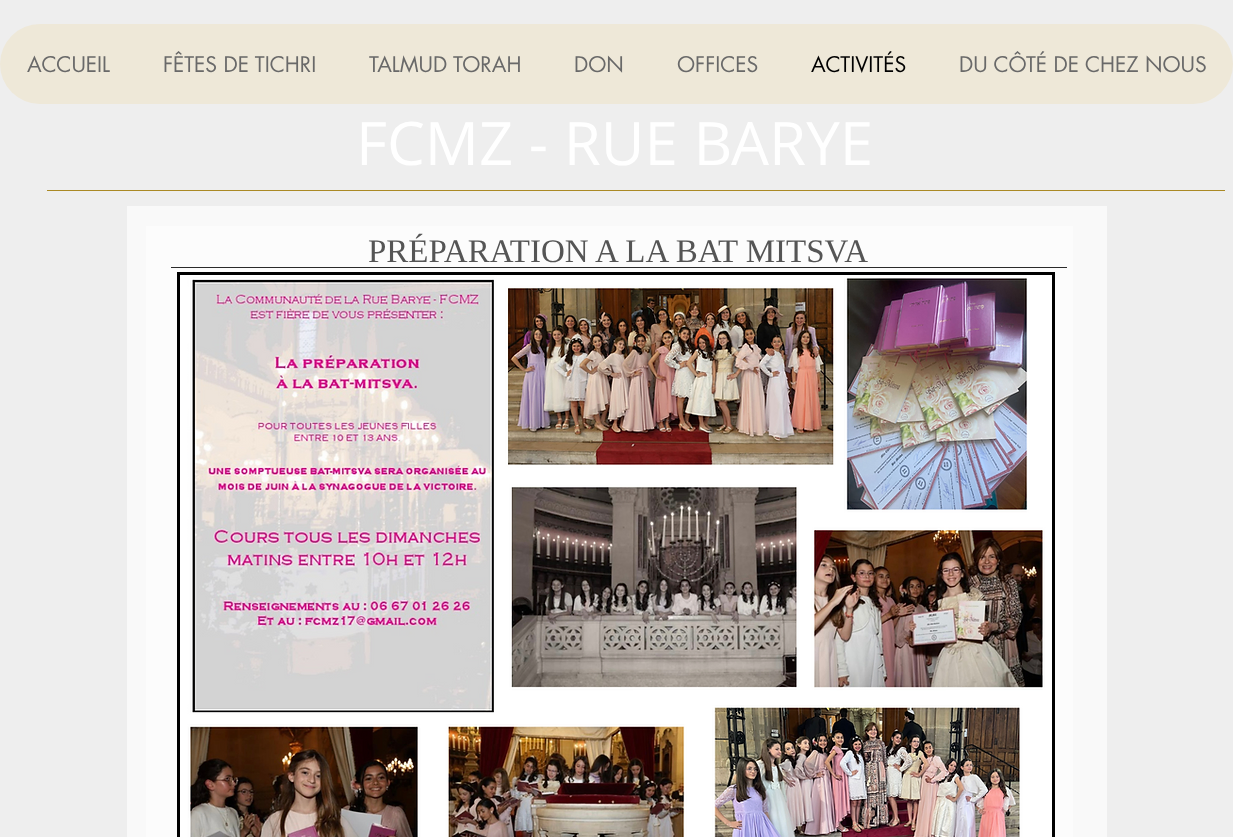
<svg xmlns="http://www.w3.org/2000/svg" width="1233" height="837">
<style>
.a{font:21px futura;fill:#696969}
.b{font:21px futura;fill:#000}
.c{font:60px Open Sans;fill:#fff}
.d{font:33px Liberation Serif;fill:#555}
</style>
<rect width="100%" height="100%" fill="#eee"/>
<rect fill="#eee8d8" y="24" width="1233" height="80" rx="40"/>
<path fill="#aa8924" d="M47 190h1178v1H47z"/>
<path fill="#f9f9f9" d="M127 206h980v631H127z"/>
<path fill="#fcfcfc" d="M146 226h927v611H146z"/>
<path fill="#000" d="M177 272h878v565H177z"/>
<image href="1.png" x="180" y="275" width="872" height="562"/>
<path fill="#2a2a2a" d="M171 267h896v1H171z"/>
<text class="a" x="27" y="72">ACCUEIL</text>
<text class="a" x="163" y="72">FÊTES DE TICHRI</text>
<text class="a" x="369" y="72">TALMUD TORAH</text>
<text class="a" x="574" y="72">DON</text>
<text class="a" x="677" y="72">OFFICES</text>
<text class="b" x="811" y="72">ACTIVITÉS</text>
<text class="a" x="959" y="72">DU CÔTÉ DE CHEZ NOUS</text>
<text class="c" x="356" y="165">FCMZ - RUE BARYE</text>
<text class="d" x="368" y="262">PRÉPARATION A LA BAT MITSVA</text>
</svg>
